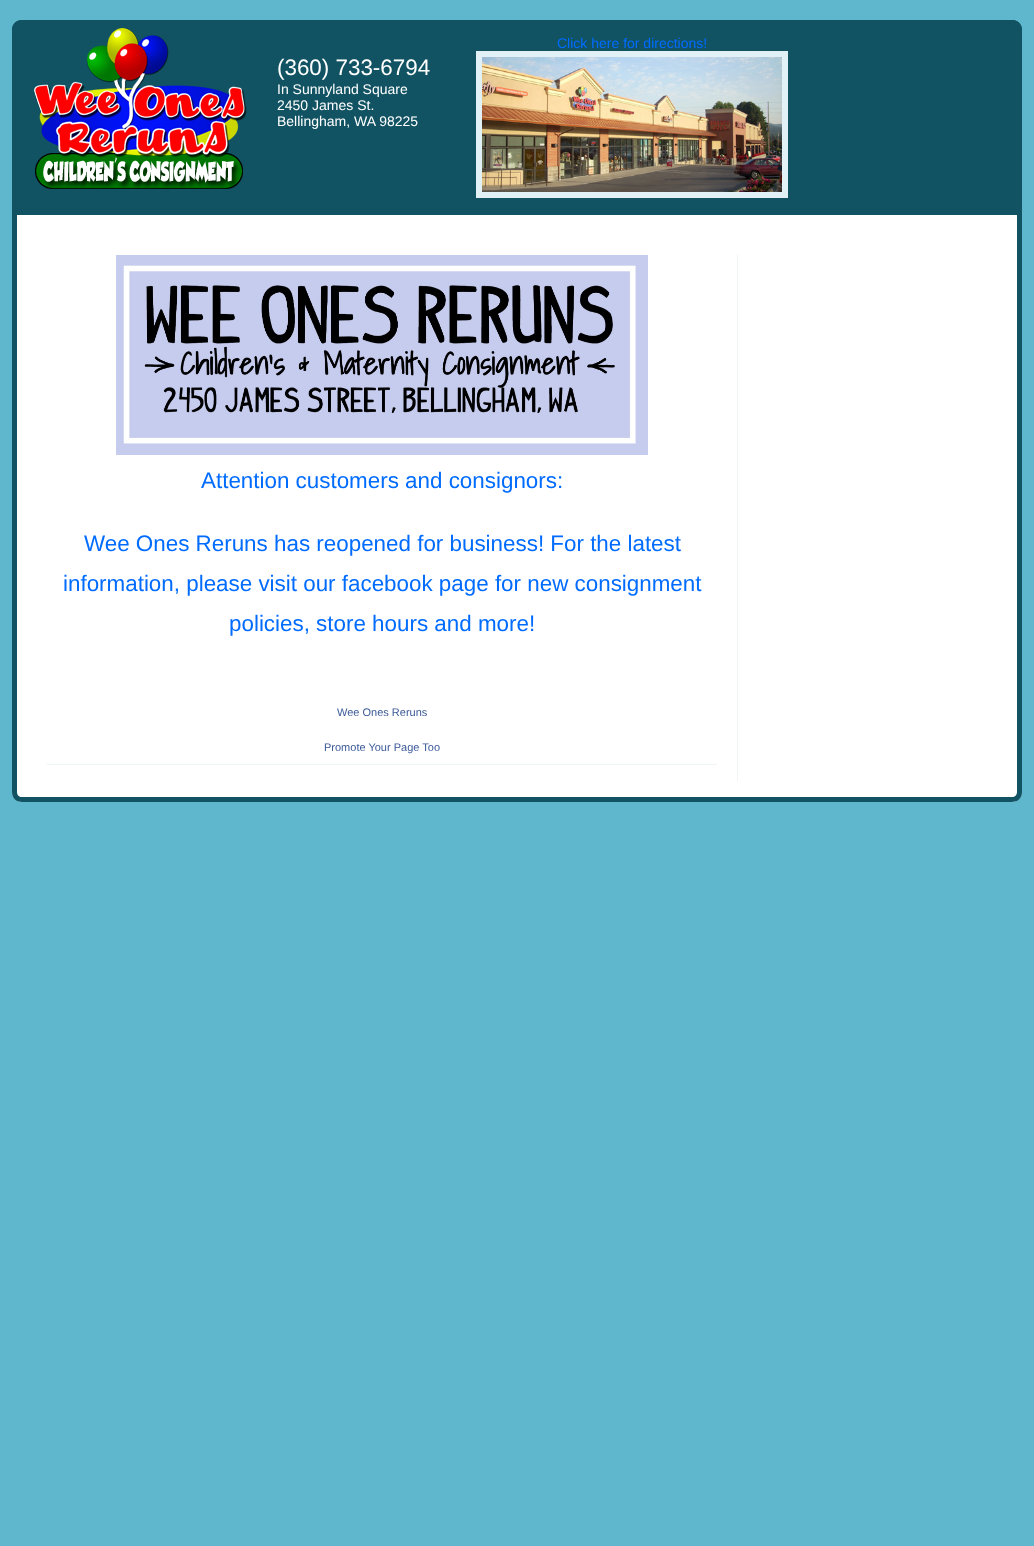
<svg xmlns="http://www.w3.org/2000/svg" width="1034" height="1546">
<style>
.a{font:14px Liberation Sans;fill:#006cff}
.b{font:22.4px Liberation Sans;fill:#fff}
.c{font:14px Liberation Sans;fill:#fff}
.d{font:22.4px Liberation Sans;fill:#006cff}
.e{font:11px Liberation Sans;fill:#3b5998}
</style>
<rect width="100%" height="100%" fill="#5fb7cd"/>
<path fill="#115363" d="M22 20h990c5.5 0 10 4.5 10 10v185h-1010v-185c0-5.5 4.5-10 10-10z"/>
<path fill="#115363" fill-rule="evenodd" d="M22 20h990c6 0 10 4 10 10v185h-1010v-185c0-6 4-10 10-10zm0 5h990c3 0 5 2 5 5v185h-1000v-185c0-3 2-5 5-5z"/>
<image href="1.png" x="34" y="28" width="213" height="161"/>
<path fill="none" stroke="#e1f1f6" stroke-width="6" d="M479 54h306v141H479z"/>
<image href="2.png" x="482" y="57" width="300" height="135"/>
<path fill="#fff" d="M12 215h1010v577c0 5.5-4.5 10-10 10h-990c-5.5 0-10-4.5-10-10z"/>
<path fill="#115363" fill-rule="evenodd" d="M12 215h1010v577c0 6-4 10-10 10h-990c-6 0-10-4-10-10zm5 0h1000v577c0 3-2 5-5 5h-990c-3 0-5-2-5-5z"/>
<path fill="#eff4f5" d="M737 255h1v526H737z"/>
<image href="3.png" x="116" y="255" width="532" height="200"/>
<path fill="#eff4f5" d="M47 764h670v1H47z"/>
<text class="a" x="557" y="48">Click here for directions!</text>
<text class="b" x="277" y="75">(360) 733-6794</text>
<text class="c" x="277" y="94">In Sunnyland Square</text>
<text class="c" x="277" y="110">2450 James St.</text>
<text class="c" x="277" y="126">Bellingham, WA 98225</text>
<text class="d" x="201" y="488">Attention customers and consignors:</text>
<text class="d" x="84" y="551">Wee Ones Reruns has reopened for business! For the latest</text>
<text class="d" x="63" y="591">information, please visit our facebook page for new consignment</text>
<text class="d" x="229" y="631">policies, store hours and more!</text>
<text class="e" x="337" y="716">Wee Ones Reruns</text>
<text class="e" x="324" y="751">Promote Your Page Too</text>
</svg>
